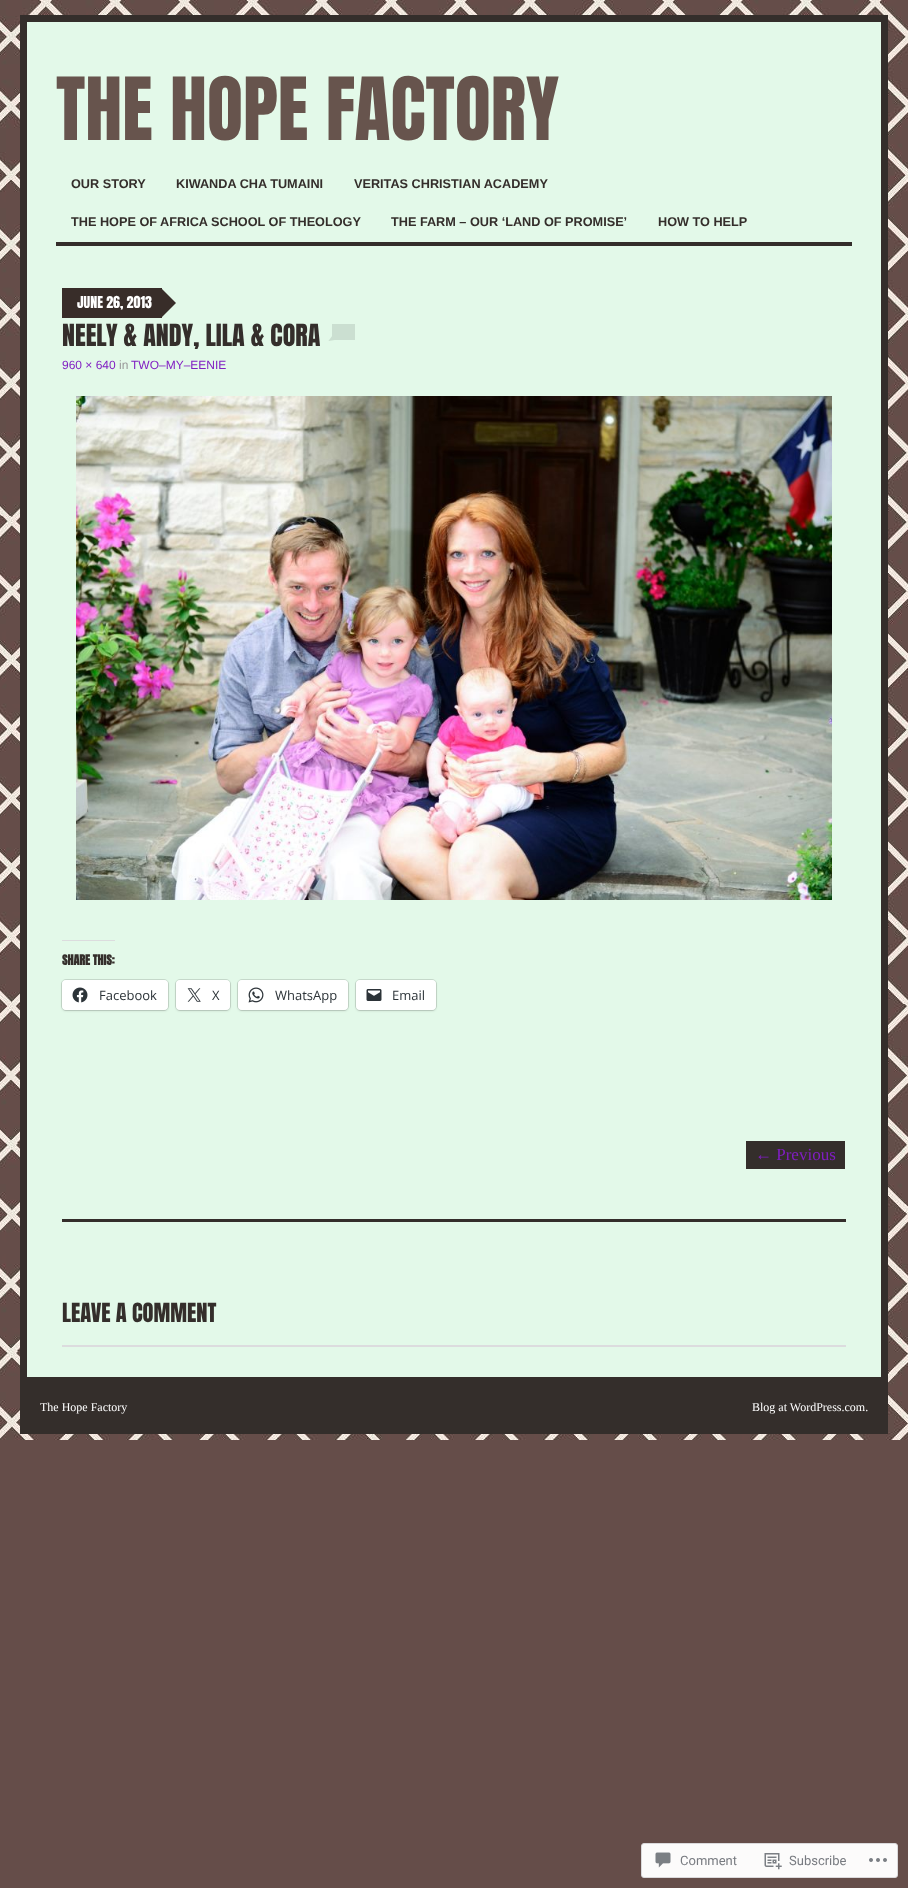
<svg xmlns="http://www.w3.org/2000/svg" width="908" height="1888">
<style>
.a{font:74px Anton;fill:#67544d}
.b{font:bold 12.7px Liberation Sans;fill:#342e2b}
.c{font:14px Anton;fill:#fff}
.d{font:26px Anton;fill:#342e2b}
.e{font:12px Liberation Sans;fill:#801ec2}
.f{font:12px Liberation Sans;fill:#999}
.g{font:bold 12px Anton;fill:#342e2b}
.h{font:13px Open Sans;fill:#2c3338}
.i{font:17px Liberation Serif;fill:#801ec2}
.j{font:22.5px Anton;fill:#342e2b}
.k{font:12px Liberation Serif;fill:#fff}
.l{font:13px Roboto;fill:#787b81}
</style>
<rect width="100%" height="100%" fill="#654d49"/>
<image href="1.png" x="0" y="0" width="908" height="1440"/>
<path fill="#e3f9e9" d="M27 22h854v1355H27z"/>
<path fill="none" stroke="#342e2b" stroke-width="7" d="M23.5 18.5h861v1412H23.5z"/>
<path fill="#342e2b" d="M56 242h796v4H56z"/>
<path fill="#382d29" d="M62 288h100v30H62z"/>
<path fill="#382d29" d="M161 318v-30l15 15z"/>
<image href="2.png" x="328" y="324" width="27" height="17"/>
<image href="3.png" x="76" y="396" width="756" height="504"/>
<path fill="#dcdcde" d="M62 940h53v1H62z"/>
<rect fill="none" stroke="#c8dbcd" x="61.5" y="979.5" width="107" height="31" rx="4.5"/>
<rect fill="#0000001f" filter="blur(1px)" x="62" y="981" width="106" height="30" rx="4"/>
<rect fill="#fff" x="62" y="980" width="106" height="30" rx="4"/>
<image href="4.png" x="72" y="987" width="16" height="16"/>
<rect fill="none" stroke="#c8dbcd" x="175.5" y="979.5" width="55" height="31" rx="4.5"/>
<rect fill="#0000001f" filter="blur(1px)" x="176" y="981" width="54" height="30" rx="4"/>
<rect fill="#fff" x="176" y="980" width="54" height="30" rx="4"/>
<image href="5.png" x="187" y="988" width="14" height="14"/>
<rect fill="none" stroke="#c8dbcd" x="237.5" y="979.5" width="111" height="31" rx="4.5"/>
<rect fill="#0000001f" filter="blur(1px)" x="238" y="981" width="110" height="30" rx="4"/>
<rect fill="#fff" x="238" y="980" width="110" height="30" rx="4"/>
<image href="6.png" x="248" y="987" width="16" height="16"/>
<rect fill="none" stroke="#c8dbcd" x="355.5" y="979.5" width="81" height="31" rx="4.5"/>
<rect fill="#0000001f" filter="blur(1px)" x="356" y="981" width="80" height="30" rx="4"/>
<rect fill="#fff" x="356" y="980" width="80" height="30" rx="4"/>
<image href="7.png" x="366" y="989" width="16" height="12"/>
<path fill="#342e2b" d="M746 1141h99v28H746z"/>
<path fill="#342e2b" d="M62 1219h784v3H62z"/>
<path fill="#dcdcde" d="M62 1345h784v2H62z"/>
<path fill="#342e2b" d="M27 1377h854v50H27z"/>
<rect fill="#fcfbfb" stroke="#dad9db" x="641.5" y="1843.5" width="256" height="34" rx="2.5"/>
<image href="8.png" x="655" y="1852" width="16" height="16"/>
<image href="9.png" x="764" y="1853" width="18" height="17"/>
<image href="10.png" x="869" y="1858" width="18" height="4"/>
<text class="a" x="56" y="140">THE HOPE FACTORY</text>
<text class="b" x="71" y="188">OUR STORY</text>
<text class="b" x="176" y="188">KIWANDA CHA TUMAINI</text>
<text class="b" x="354" y="188">VERITAS CHRISTIAN ACADEMY</text>
<text class="b" x="71" y="226">THE HOPE OF AFRICA SCHOOL OF THEOLOGY</text>
<text class="b" x="391" y="226">THE FARM – OUR ‘LAND OF PROMISE’</text>
<text class="b" x="658" y="226">HOW TO HELP</text>
<text class="c" x="77" y="308">JUNE 26, 2013</text>
<text class="d" x="62" y="346">NEELY &amp; ANDY, LILA &amp; CORA</text>
<text class="e" x="62" y="369">960 × 640</text>
<text class="f" x="119" y="369">in</text>
<text class="e" x="131" y="369">TWO–MY–EENIE</text>
<text class="g" x="62" y="965">SHARE THIS:</text>
<text class="h" x="99" y="1000">Facebook</text>
<text class="h" x="212" y="1000">X</text>
<text class="h" x="275" y="1000">WhatsApp</text>
<text class="h" x="392" y="1000">Email</text>
<text class="i" x="755" y="1160">← Previous</text>
<text class="j" x="62" y="1322">LEAVE A COMMENT</text>
<text class="k" x="40" y="1411">The Hope Factory</text>
<text class="k" x="752" y="1411">Blog at WordPress.com.</text>
<text class="l" x="680" y="1865">Comment</text>
<text class="l" x="789" y="1865">Subscribe</text>
</svg>
